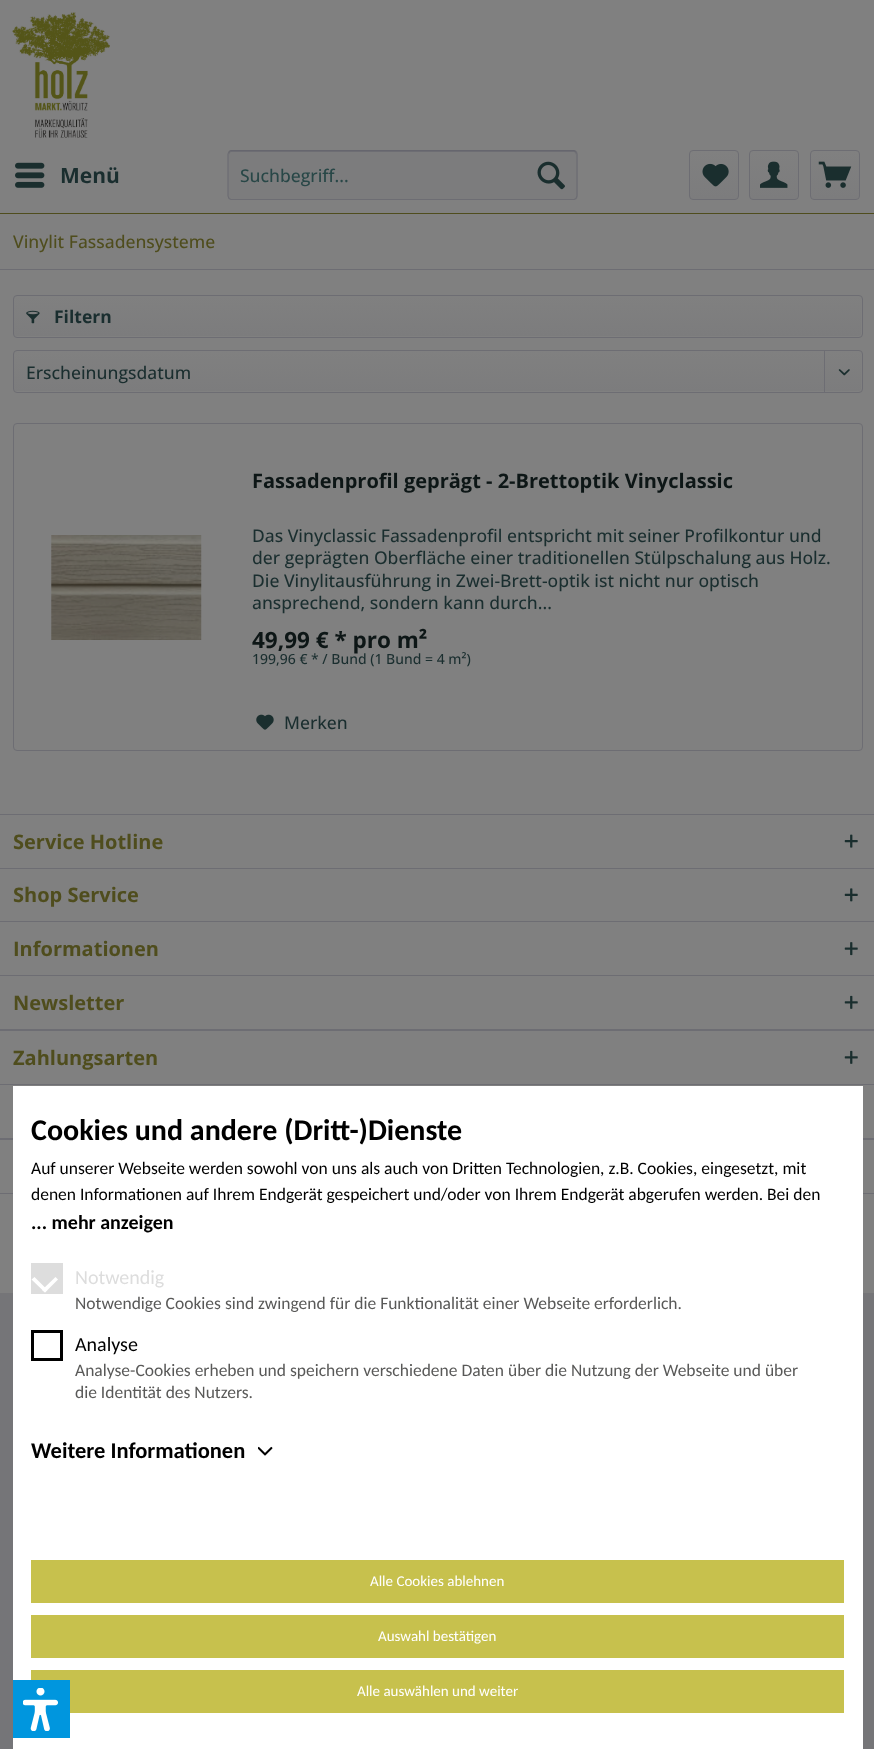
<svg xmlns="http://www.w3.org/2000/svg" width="874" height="1749">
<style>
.a{font:bold 21px Open Sans;fill:#1a2e2f}
.b{font:500 17.5px Open Sans;fill:#284747}
.c{font:500 17.5px Open Sans;fill:#4f4d1d}
.d{font:bold 17.5px Open Sans;fill:#1a2e2f}
.e{font:500 17.5px Open Sans;fill:#1a2e2f}
.f{font:bold 20px Open Sans;fill:#0d1616}
.g{font:bold 22.5px Open Sans;fill:#0d1616}
.h{font:500 14px Open Sans;fill:#1a2e2f}
.i{font:bold 20px Open Sans;fill:#4f4d1d}
.j{font:bold 30px Carlito;fill:#000}
.k{font:17.5px Carlito;fill:#000}
.l{font:bold 20px Carlito;fill:#000}
.m{font:20px Carlito;fill:#ddd}
.n{font:17.5px Carlito;fill:#595958}
.o{font:20px Carlito;fill:#000}
.p{font:bold 22.5px Carlito;fill:#000}
.q{font:15px Carlito;fill:#fff}
</style>
<defs>
<linearGradient id="g1" gradientUnits="userSpaceOnUse" x1="714" y1="151" x2="714" y2="199"><stop offset="0" stop-color="#808080"/><stop offset="1" stop-color="#7c7c7d"/></linearGradient>
<linearGradient id="g2" gradientUnits="userSpaceOnUse" x1="774" y1="151" x2="774" y2="199"><stop offset="0" stop-color="#808080"/><stop offset="1" stop-color="#7c7c7d"/></linearGradient>
<linearGradient id="g3" gradientUnits="userSpaceOnUse" x1="835" y1="151" x2="835" y2="199"><stop offset="0" stop-color="#808080"/><stop offset="1" stop-color="#7c7c7d"/></linearGradient>
<linearGradient id="g4" gradientUnits="userSpaceOnUse" x1="438" y1="296" x2="438" y2="336"><stop offset="0" stop-color="#808080"/><stop offset="1" stop-color="#7c7c7d"/></linearGradient>
<linearGradient id="g5" gradientUnits="userSpaceOnUse" x1="438" y1="351" x2="438" y2="391"><stop offset="0" stop-color="#808080"/><stop offset="1" stop-color="#7c7c7d"/></linearGradient>
</defs>
<rect width="100%" height="100%" fill="#757578"/>
<path fill="#808080" d="M0 0h874v213H0z"/>
<path fill="#4f4d1d" d="M0 213h874v1H0z"/>
<image href="1.png" x="12" y="12" width="98" height="126"/>
<image href="2.png" x="15" y="162" width="30" height="26"/>
<rect fill="#7c7c7d" x="228" y="150" width="350" height="50" rx="4"/>
<path fill="#6d6d73" d="M231 152h343c1 0 2 2 2 3c0-2 0-4-2-4h-343l-2 1v3c0-1 1-3 2-3z"/>
<path fill="none" stroke="#66666e" stroke-width="1.2" d="M229 151.5l2-1h343l2 1"/>
<path fill="none" stroke="#6d6d73" stroke-width="1.2" d="M576 151.5l1 2.5v42l-1 2.5l-2 1h-343l-2-1l-1-2.5v-42l1-2.5"/>
<image href="3.png" x="537" y="161" width="28" height="29"/>
<rect fill="url(#g1)" x="690" y="151" width="48" height="48" rx="2.5"/>
<rect fill="none" stroke="#6d6d73" x="689.5" y="150.5" width="49" height="49" rx="3.5"/>
<image href="4.png" x="702" y="163" width="27" height="24"/>
<rect fill="url(#g2)" x="750" y="151" width="48" height="48" rx="2.5"/>
<rect fill="none" stroke="#6d6d73" x="749.5" y="150.5" width="49" height="49" rx="3.5"/>
<image href="5.png" x="760" y="161" width="28" height="27"/>
<rect fill="url(#g3)" x="811" y="151" width="48" height="48" rx="2.5"/>
<rect fill="none" stroke="#6d6d73" x="810.5" y="150.5" width="49" height="49" rx="3.5"/>
<image href="6.png" x="818" y="161" width="34" height="27"/>
<path fill="#808080" d="M0 214h874v600H0z"/>
<path fill="#6d6d73" d="M0 269h874v1H0z"/>
<rect fill="url(#g4)" x="14" y="296" width="847" height="40" rx="2.5"/>
<rect fill="none" stroke="#6d6d73" x="13.5" y="295.5" width="849" height="42" rx="3.5"/>
<image href="7.png" x="26" y="310" width="14" height="14"/>
<rect fill="url(#g5)" x="14" y="351" width="847" height="40" rx="2.5"/>
<rect fill="none" stroke="#6d6d73" x="13.5" y="350.5" width="849" height="42" rx="3.5"/>
<path fill="#6d6d73" d="M824 351h1v42H824z"/>
<image href="8.png" x="838" y="369" width="12" height="7"/>
<rect fill="none" stroke="#6d6d73" x="13.5" y="423.5" width="849" height="327" rx="3.5"/>
<image href="9.png" x="51" y="535" width="151" height="105"/>
<image href="10.png" x="256" y="714" width="18" height="16"/>
<path fill="#808080" d="M0 815h874v478H0z"/>
<path fill="#6d6d73" d="M0 814h874v1H0z"/>
<image href="11.png" x="844" y="834" width="14" height="14"/>
<path fill="#6d6d73" d="M0 868h874v1H0z"/>
<image href="12.png" x="844" y="888" width="14" height="14"/>
<path fill="#6d6d73" d="M0 921h874v1H0z"/>
<image href="13.png" x="844" y="942" width="14" height="14"/>
<path fill="#6d6d73" d="M0 975h874v1H0z"/>
<path fill="#6d6d73" d="M0 1029h874v2H0z"/>
<image href="14.png" x="844" y="995" width="14" height="14"/>
<image href="14.png" x="844" y="1050" width="14" height="14"/>
<path fill="#6d6d73" d="M0 1084h874v1H0z"/>
<path fill="#6d6d73" d="M0 1138h874v2H0z"/>
<path fill="#6d6d73" d="M0 1193h874v1H0z"/>
<path fill="#fff" d="M13 1086h850v663H13z"/>
<path fill="#ddd" d="M31 1263h32v31H31z"/>
<path fill="#fff" d="M55.5 1277l2.5 2.5l-13 13l-3-2.5z"/>
<path fill="#fff" d="M34.5 1277l13 13l-2.5 2.5l-13.5-13z"/>
<path fill="none" stroke="#000" stroke-width="3" d="M32.5 1331.5h29v28H32.5z"/>
<image href="15.png" x="258" y="1446" width="15" height="10"/>
<path fill="#c7c14d" d="M31 1560h813v43H31z"/>
<path fill="#c7c14d" d="M31 1615h813v43H31z"/>
<path fill="#c7c14d" d="M31 1670h813v43H31z"/>
<path fill="#0096de" d="M13 1680h57v58H13z"/>
<image href="16.png" x="23" y="1688" width="35" height="43"/>
<text class="a" x="60" y="183">Menü</text>
<text class="b" x="240" y="182">Suchbegriff...</text>
<text class="c" x="13" y="248">Vinylit Fassadensysteme</text>
<text class="d" x="54" y="323">Filtern</text>
<text class="e" x="26" y="379">Erscheinungsdatum</text>
<text class="f" x="252" y="488">Fassadenprofil geprägt - 2-Brettoptik Vinyclassic</text>
<text class="e" x="252" y="542">Das Vinyclassic Fassadenprofil entspricht mit seiner Profilkontur und</text>
<text class="e" x="252" y="564">der geprägten Oberfläche einer traditionellen Stülpschalung aus Holz.</text>
<text class="e" x="252" y="587">Die Vinylitausführung in Zwei-Brett-optik ist nicht nur optisch</text>
<text class="e" x="252" y="609">ansprechend, sondern kann durch...</text>
<text class="g" x="252" y="648">49,99 € * pro m²</text>
<text class="h" x="252" y="664">199,96 € * / Bund (1 Bund = 4 m²)</text>
<text class="e" x="284" y="729">Merken</text>
<text class="i" x="13" y="849">Service Hotline</text>
<text class="i" x="13" y="902">Shop Service</text>
<text class="i" x="13" y="956">Informationen</text>
<text class="i" x="13" y="1010">Newsletter</text>
<text class="i" x="13" y="1065">Zahlungsarten</text>
<text class="j" x="31" y="1140">Cookies und andere (Dritt-)Dienste</text>
<text class="k" x="31" y="1174">Auf unserer Webseite werden sowohl von uns als auch von Dritten Technologien, z.B. Cookies, eingesetzt, mit</text>
<text class="k" x="31" y="1200">denen Informationen auf Ihrem Endgerät gespeichert und/oder von Ihrem Endgerät abgerufen werden. Bei den</text>
<text class="l" x="31" y="1229">... mehr anzeigen</text>
<text class="m" x="75" y="1284">Notwendig</text>
<text class="n" x="75" y="1309">Notwendige Cookies sind zwingend für die Funktionalität einer Webseite erforderlich.</text>
<text class="o" x="75" y="1351">Analyse</text>
<text class="n" x="75" y="1376">Analyse-Cookies erheben und speichern verschiedene Daten über die Nutzung der Webseite und über</text>
<text class="n" x="75" y="1398">die Identität des Nutzers.</text>
<text class="p" x="31" y="1458">Weitere Informationen</text>
<text class="q" x="370" y="1586">Alle Cookies ablehnen</text>
<text class="q" x="378" y="1641">Auswahl bestätigen</text>
<text class="q" x="357" y="1696">Alle auswählen und weiter</text>
</svg>
